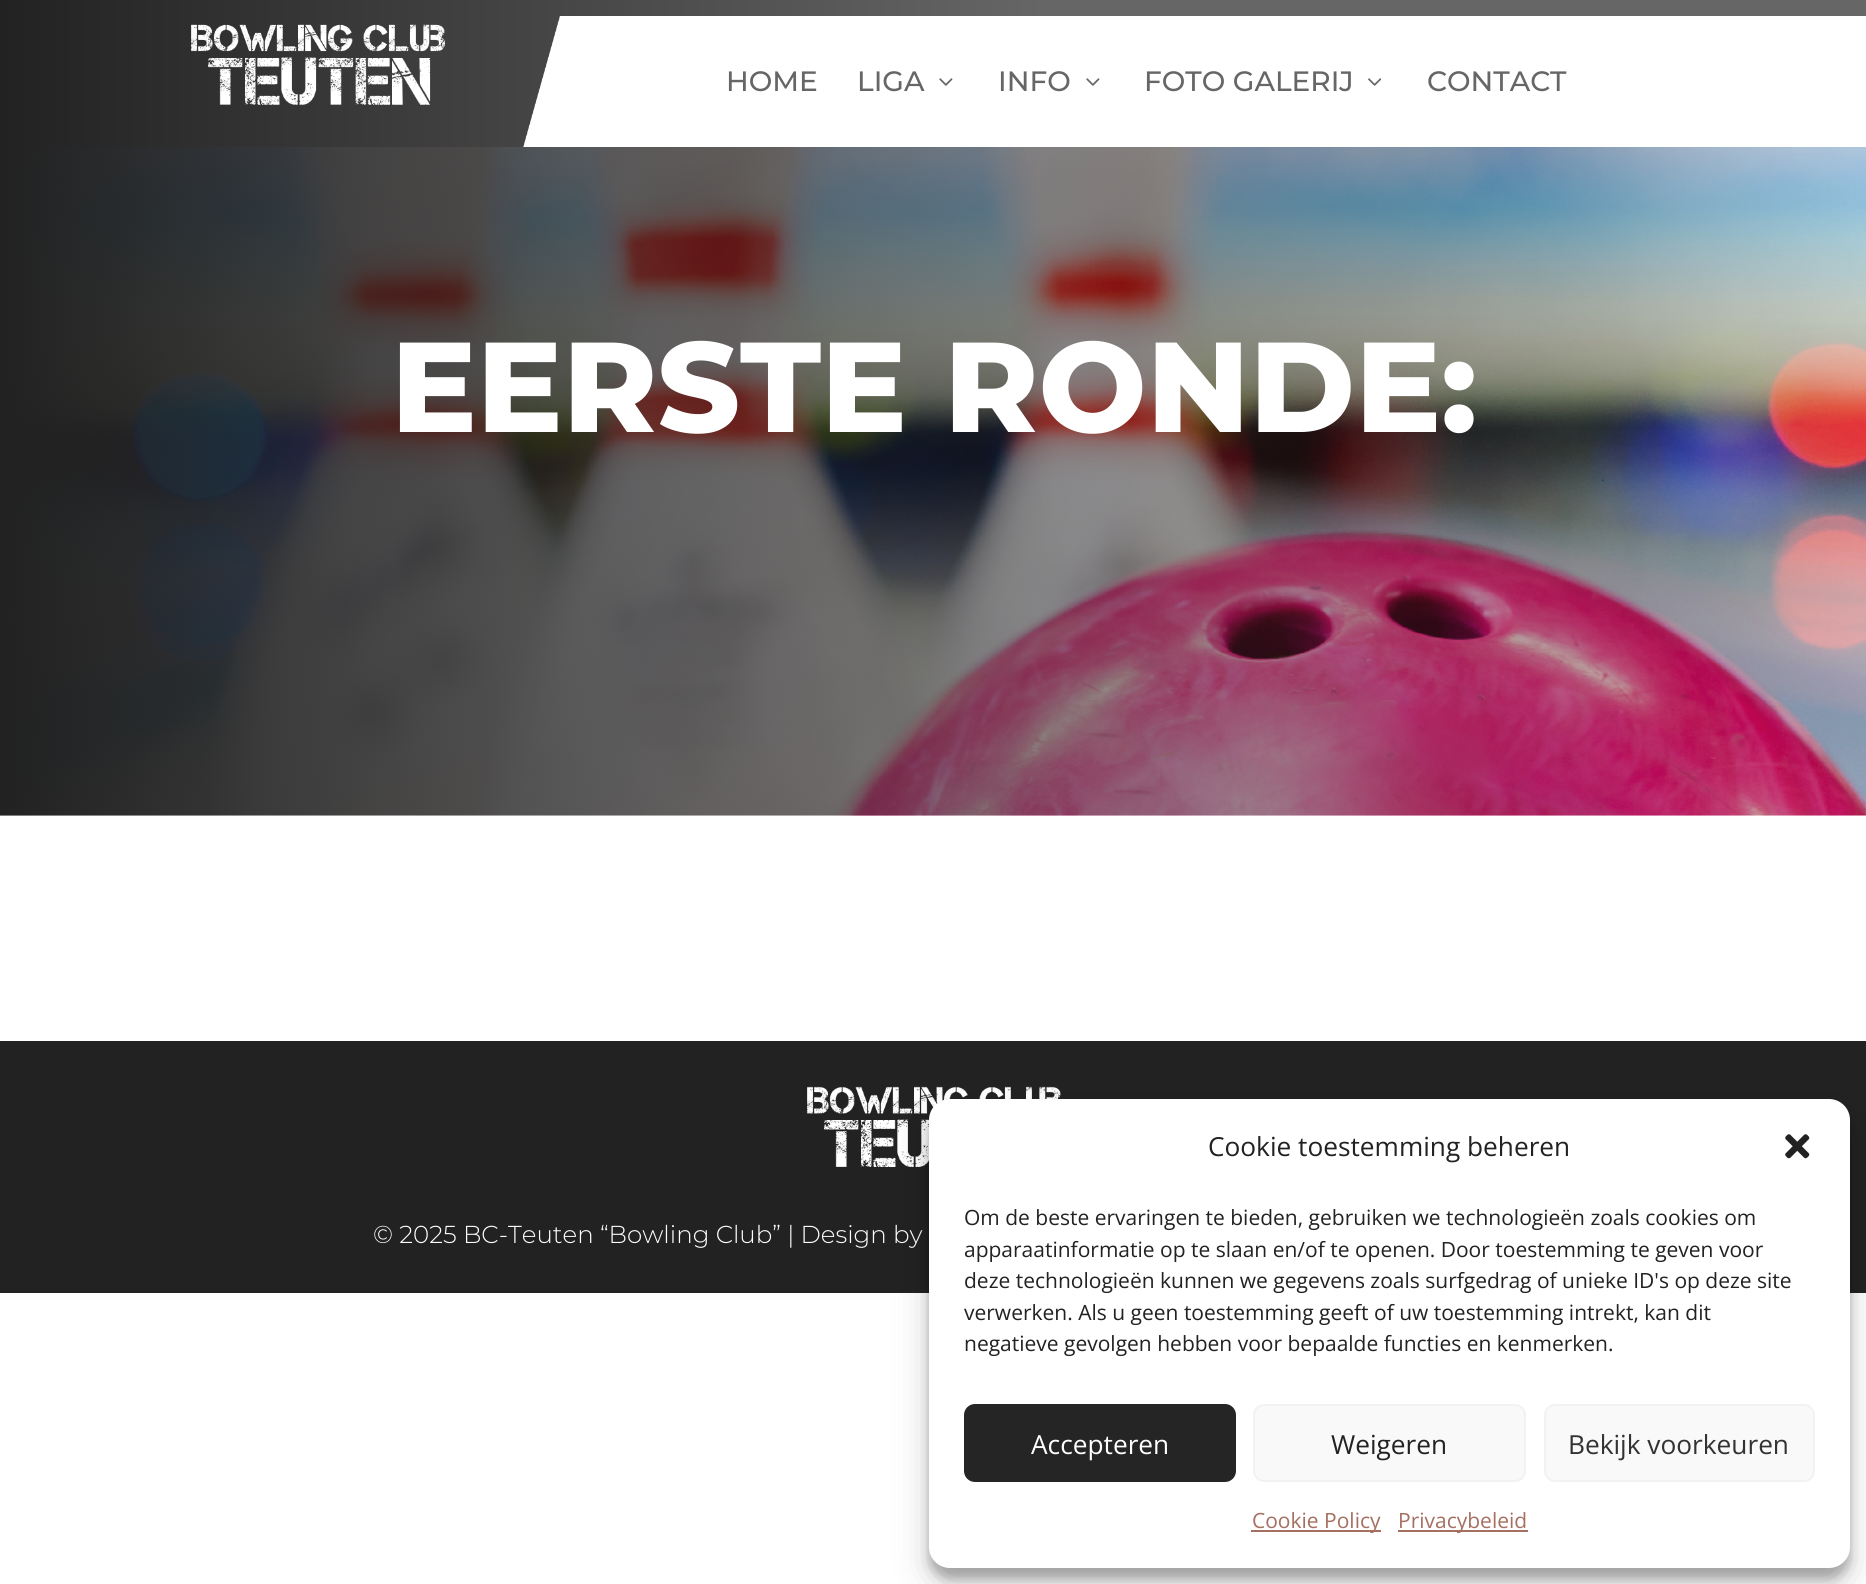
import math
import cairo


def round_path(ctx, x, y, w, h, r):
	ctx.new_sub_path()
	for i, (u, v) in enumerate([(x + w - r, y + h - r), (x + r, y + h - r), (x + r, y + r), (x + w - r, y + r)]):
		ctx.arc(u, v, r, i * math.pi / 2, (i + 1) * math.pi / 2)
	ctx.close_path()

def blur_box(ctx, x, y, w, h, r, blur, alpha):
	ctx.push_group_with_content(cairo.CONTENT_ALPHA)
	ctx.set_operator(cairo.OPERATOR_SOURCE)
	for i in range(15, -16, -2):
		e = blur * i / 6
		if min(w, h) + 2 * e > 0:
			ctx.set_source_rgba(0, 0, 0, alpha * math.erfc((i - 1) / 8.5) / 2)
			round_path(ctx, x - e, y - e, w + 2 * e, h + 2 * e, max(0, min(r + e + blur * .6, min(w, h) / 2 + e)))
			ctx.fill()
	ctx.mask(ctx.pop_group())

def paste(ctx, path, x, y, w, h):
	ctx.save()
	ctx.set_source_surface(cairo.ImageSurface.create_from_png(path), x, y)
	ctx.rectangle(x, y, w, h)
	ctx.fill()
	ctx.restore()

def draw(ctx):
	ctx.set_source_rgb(1, 1, 1)
	ctx.paint()
	gradient = cairo.LinearGradient(0, 74, 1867, 73)
	gradient.add_color_stop_rgba(0, 0.133, 0.133, 0.133, 1)
	gradient.add_color_stop_rgba(0.56, 0.4, 0.4, 0.4, 1)
	ctx.set_source(gradient)
	ctx.rectangle(0, 0, 1866, 147)
	ctx.fill()
	ctx.set_source_rgb(1, 1, 1)
	ctx.rectangle(560, 16, 1306, 131)
	ctx.fill()
	paste(ctx, 'media/1.png', 523, 15, 37, 132)
	paste(ctx, 'media/2.png', 191, 24, 254, 81)
	ctx.select_font_face('Montserrat Medium')
	ctx.set_font_size(28)
	ctx.set_source_rgb(0.4, 0.4, 0.4)
	ctx.move_to(726, 91)
	ctx.show_text('HOME')
	ctx.move_to(857, 91)
	ctx.show_text('LIGA')
	paste(ctx, 'media/3.png', 939, 78, 14, 8)
	ctx.move_to(998, 91)
	ctx.show_text('INFO')
	paste(ctx, 'media/3.png', 1086, 78, 14, 8)
	ctx.move_to(1144, 91)
	ctx.show_text('FOTO GALERIJ')
	paste(ctx, 'media/4.png', 1368, 78, 14, 8)
	ctx.move_to(1427, 91)
	ctx.show_text('CONTACT')
	paste(ctx, 'media/5.png', 0, 147, 1866, 669)
	ctx.select_font_face('Montserrat ExtraBold')
	ctx.set_font_size(127.75)
	ctx.set_source_rgb(1, 1, 1)
	ctx.move_to(391, 432)
	ctx.show_text('EERSTE RONDE:')
	ctx.set_source_rgb(0.133, 0.133, 0.133)
	ctx.rectangle(0, 1041, 1866, 252)
	ctx.fill()
	paste(ctx, 'media/6.png', 807, 1086, 254, 81)
	ctx.select_font_face('Montserrat Light')
	ctx.set_font_size(24.5)
	ctx.set_source_rgb(1, 1, 1)
	ctx.move_to(373, 1243)
	ctx.show_text('© 2025 BC-Teuten “Bowling Club” | Design by')
	ctx.set_source_rgb(0, 0, 0)
	blur_box(ctx, 929, 1110, 921, 469, 21, 5, 0.23)
	blur_box(ctx, 929, 1117, 921, 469, 21, 17.5, 0.19)
	ctx.set_source_rgb(1, 1, 1)
	round_path(ctx, 929, 1099, 921, 469, 21)
	ctx.fill()
	ctx.select_font_face('Open Sans')
	ctx.set_font_size(26.25)
	ctx.set_source_rgb(0.133, 0.133, 0.133)
	ctx.move_to(1208, 1156)
	ctx.show_text('Cookie toestemming beheren')
	paste(ctx, 'media/7.png', 1785, 1134, 25, 25)
	ctx.set_font_size(21)
	for x, y, s in [
		(964, 1225, 'Om de beste ervaringen te bieden, gebruiken we technologieën zoals cookies om'),
		(964, 1257, 'apparaatinformatie op te slaan en/of te openen. Door toestemming te geven voor'),
		(964, 1288, 'deze technologieën kunnen we gegevens zoals surfgedrag of unieke ID\'s op deze site'),
		(964, 1320, 'verwerken. Als u geen toestemming geeft of uw toestemming intrekt, kan dit'),
		(964, 1351, 'negatieve gevolgen hebben voor bepaalde functies en kenmerken.'),
	]:
		ctx.move_to(x, y)
		ctx.show_text(s)
	ctx.set_source_rgb(0.145, 0.145, 0.145)
	round_path(ctx, 965, 1405, 270, 76, 10)
	ctx.fill_preserve()
	ctx.stroke()
	ctx.set_font_size(26.25)
	ctx.set_source_rgb(1, 1, 1)
	ctx.move_to(1031, 1454)
	ctx.show_text('Accepteren')
	ctx.set_source_rgb(0.976, 0.976, 0.976)
	round_path(ctx, 1254, 1405, 271, 76, 10)
	ctx.fill_preserve()
	ctx.set_source_rgb(0.949, 0.949, 0.949)
	ctx.stroke()
	ctx.set_source_rgb(0.133, 0.133, 0.133)
	ctx.move_to(1331, 1454)
	ctx.show_text('Weigeren')
	ctx.set_source_rgb(0.976, 0.976, 0.976)
	round_path(ctx, 1545, 1405, 269, 76, 10)
	ctx.fill_preserve()
	ctx.set_source_rgb(0.949, 0.949, 0.949)
	ctx.stroke()
	ctx.set_source_rgb(0.2, 0.2, 0.2)
	ctx.move_to(1568, 1454)
	ctx.show_text('Bekijk voorkeuren')
	ctx.set_source_rgb(0.647, 0.439, 0.38)
	ctx.rectangle(1251, 1530, 130, 2)
	ctx.fill()
	ctx.set_font_size(21)
	ctx.move_to(1252, 1528)
	ctx.show_text('Cookie Policy')
	ctx.rectangle(1398, 1530, 130, 2)
	ctx.fill()
	ctx.move_to(1398, 1528)
	ctx.show_text('Privacybeleid')


surface = cairo.ImageSurface(cairo.FORMAT_RGB24, 1866, 1584)
ctx = cairo.Context(surface)
options = cairo.FontOptions()
options.set_hint_metrics(cairo.HINT_METRICS_OFF)
options.set_hint_style(cairo.HINT_STYLE_NONE)
ctx.set_font_options(options)
ctx.set_miter_limit(4)
draw(ctx)
surface.write_to_png('image.png')
